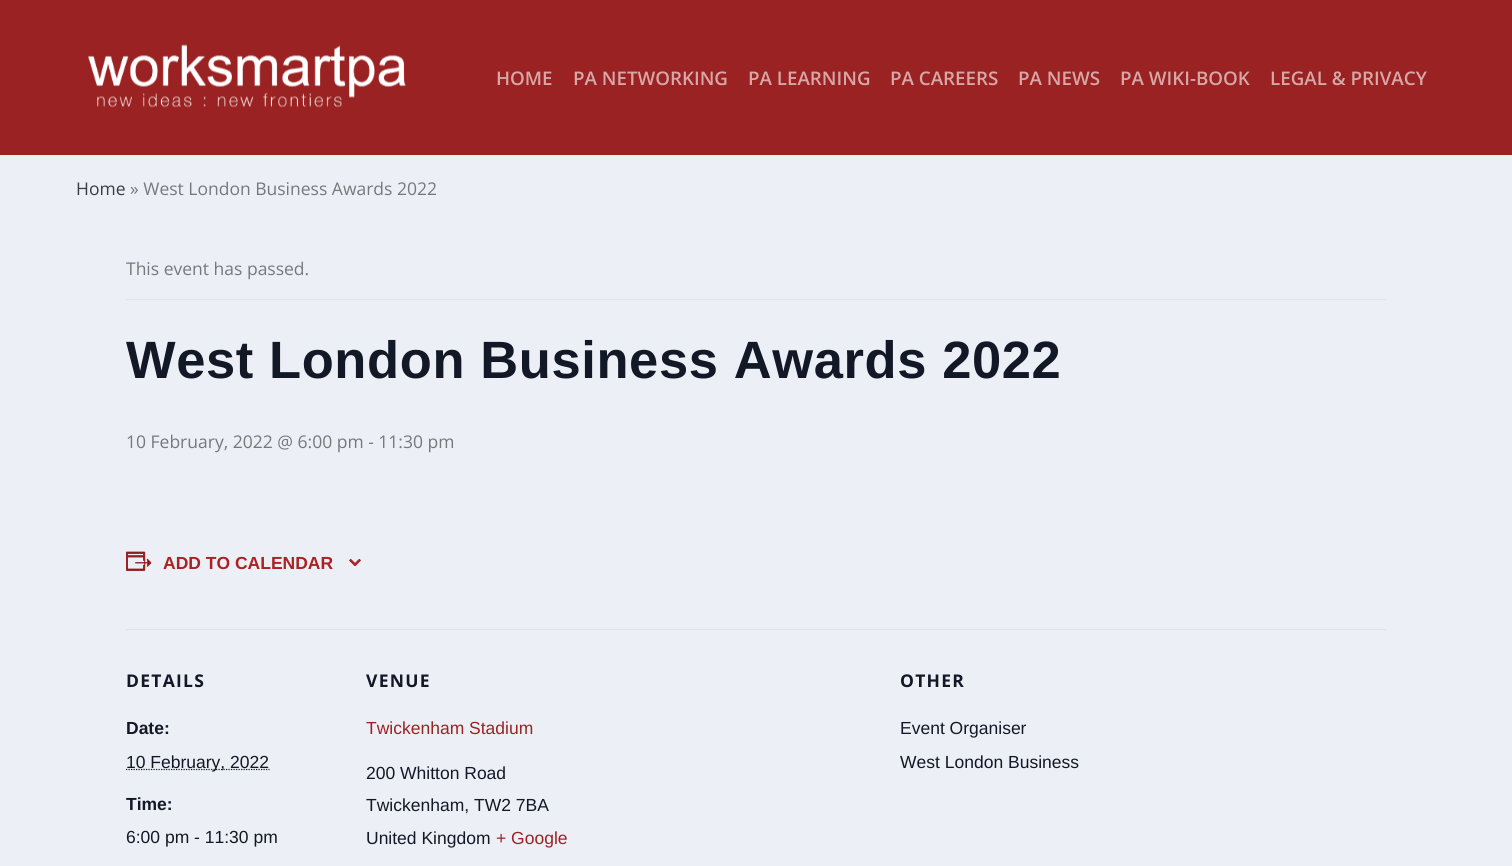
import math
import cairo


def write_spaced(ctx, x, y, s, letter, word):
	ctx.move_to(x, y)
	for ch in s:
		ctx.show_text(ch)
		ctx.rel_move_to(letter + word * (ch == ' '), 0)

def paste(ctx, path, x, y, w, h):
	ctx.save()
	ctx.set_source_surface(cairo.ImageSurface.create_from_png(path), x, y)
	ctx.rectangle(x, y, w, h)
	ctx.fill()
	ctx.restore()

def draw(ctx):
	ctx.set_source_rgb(0.925, 0.941, 0.961)
	ctx.paint()
	ctx.set_source_rgb(0.608, 0.133, 0.133)
	ctx.rectangle(0, 0, 1512, 155)
	ctx.fill()
	paste(ctx, 'media/1.png', 88, 44, 318, 64)
	ctx.select_font_face('Open Sans SemiBold')
	ctx.set_font_size(18.75)
	ctx.set_source_rgb(0.843, 0.655, 0.655)
	for x, y, s in [
		(496, 85, 'HOME'),
		(573, 85, 'PA NETWORKING'),
		(748, 85, 'PA LEARNING'),
		(890, 85, 'PA CAREERS'),
		(1018, 85, 'PA NEWS'),
		(1120, 85, 'PA WIKI-BOOK'),
		(1270, 85, 'LEGAL & PRIVACY'),
	]:
		ctx.move_to(x, y)
		ctx.show_text(s)
	ctx.select_font_face('Open Sans')
	ctx.set_font_size(17.5)
	ctx.set_source_rgb(0.231, 0.235, 0.239)
	ctx.move_to(76, 195)
	ctx.show_text('Home')
	ctx.set_source_rgb(0.463, 0.471, 0.482)
	ctx.move_to(130, 195)
	ctx.show_text('» West London Business Awards 2022')
	ctx.set_source_rgb(0.894, 0.894, 0.894)
	ctx.rectangle(126, 299, 1260, 1)
	ctx.fill()
	ctx.set_source_rgb(0.463, 0.471, 0.482)
	ctx.move_to(126, 275)
	ctx.show_text('This event has passed.')
	ctx.select_font_face('Liberation Sans', cairo.FONT_SLANT_NORMAL, cairo.FONT_WEIGHT_BOLD)
	ctx.set_font_size(52.5)
	ctx.set_source_rgb(0.078, 0.094, 0.153)
	write_spaced(ctx, 126, 378, 'West London Business Awards 2022', 0.6, 0)
	ctx.select_font_face('Open Sans')
	ctx.set_font_size(17.5)
	ctx.set_source_rgb(0.463, 0.471, 0.482)
	ctx.move_to(126, 448)
	ctx.show_text('10 February, 2022 @ 6:00 pm - 11:30 pm')
	paste(ctx, 'media/2.png', 126, 551, 26, 20)
	ctx.select_font_face('Liberation Sans', cairo.FONT_SLANT_NORMAL, cairo.FONT_WEIGHT_BOLD)
	ctx.set_source_rgb(0.667, 0.133, 0.137)
	ctx.move_to(163, 569)
	ctx.show_text('ADD TO CALENDAR')
	paste(ctx, 'media/3.png', 349, 559, 12, 7)
	ctx.set_source_rgb(0.894, 0.894, 0.894)
	ctx.rectangle(126, 629, 1260, 1)
	ctx.fill()
	ctx.select_font_face('Open Sans', cairo.FONT_SLANT_NORMAL, cairo.FONT_WEIGHT_BOLD)
	ctx.set_source_rgb(0.078, 0.094, 0.153)
	write_spaced(ctx, 126, 687, 'DETAILS', 1.25, 0)
	ctx.select_font_face('Liberation Sans', cairo.FONT_SLANT_NORMAL, cairo.FONT_WEIGHT_BOLD)
	ctx.move_to(126, 734)
	ctx.show_text('Date:')
	ctx.new_path()
	ctx.move_to(126, 769.5)
	ctx.line_to(269.5, 769.5)
	ctx.set_line_width(1.2)
	ctx.set_dash([1.25, 1.25])
	ctx.stroke()
	ctx.select_font_face('Liberation Sans')
	ctx.move_to(126, 768)
	ctx.show_text('10 February, 2022')
	ctx.select_font_face('Liberation Sans', cairo.FONT_SLANT_NORMAL, cairo.FONT_WEIGHT_BOLD)
	ctx.move_to(126, 810)
	ctx.show_text('Time:')
	ctx.select_font_face('Liberation Sans')
	ctx.move_to(126, 843)
	ctx.show_text('6:00 pm - 11:30 pm')
	ctx.select_font_face('Open Sans', cairo.FONT_SLANT_NORMAL, cairo.FONT_WEIGHT_BOLD)
	write_spaced(ctx, 366, 687, 'VENUE', 1.25, 0)
	ctx.select_font_face('Liberation Sans')
	ctx.set_source_rgb(0.608, 0.133, 0.137)
	ctx.move_to(366, 734)
	ctx.show_text('Twickenham Stadium')
	ctx.set_source_rgb(0.078, 0.094, 0.153)
	for x, y, s in [
		(366, 779, '200 Whitton Road'),
		(366, 811, 'Twickenham, TW2 7BA'),
		(366, 844, 'United Kingdom'),
	]:
		ctx.move_to(x, y)
		ctx.show_text(s)
	ctx.set_source_rgb(0.608, 0.133, 0.137)
	ctx.move_to(496, 844)
	ctx.show_text('+ Google')
	ctx.select_font_face('Open Sans', cairo.FONT_SLANT_NORMAL, cairo.FONT_WEIGHT_BOLD)
	ctx.set_source_rgb(0.078, 0.094, 0.153)
	write_spaced(ctx, 900, 687, 'OTHER', 1.25, 0)
	ctx.select_font_face('Liberation Sans')
	ctx.move_to(900, 734)
	ctx.show_text('Event Organiser')
	ctx.move_to(900, 768)
	ctx.show_text('West London Business')


surface = cairo.ImageSurface(cairo.FORMAT_RGB24, 1512, 866)
ctx = cairo.Context(surface)
options = cairo.FontOptions()
options.set_hint_metrics(cairo.HINT_METRICS_OFF)
options.set_hint_style(cairo.HINT_STYLE_NONE)
ctx.set_font_options(options)
ctx.set_miter_limit(4)
draw(ctx)
surface.write_to_png('image.png')
